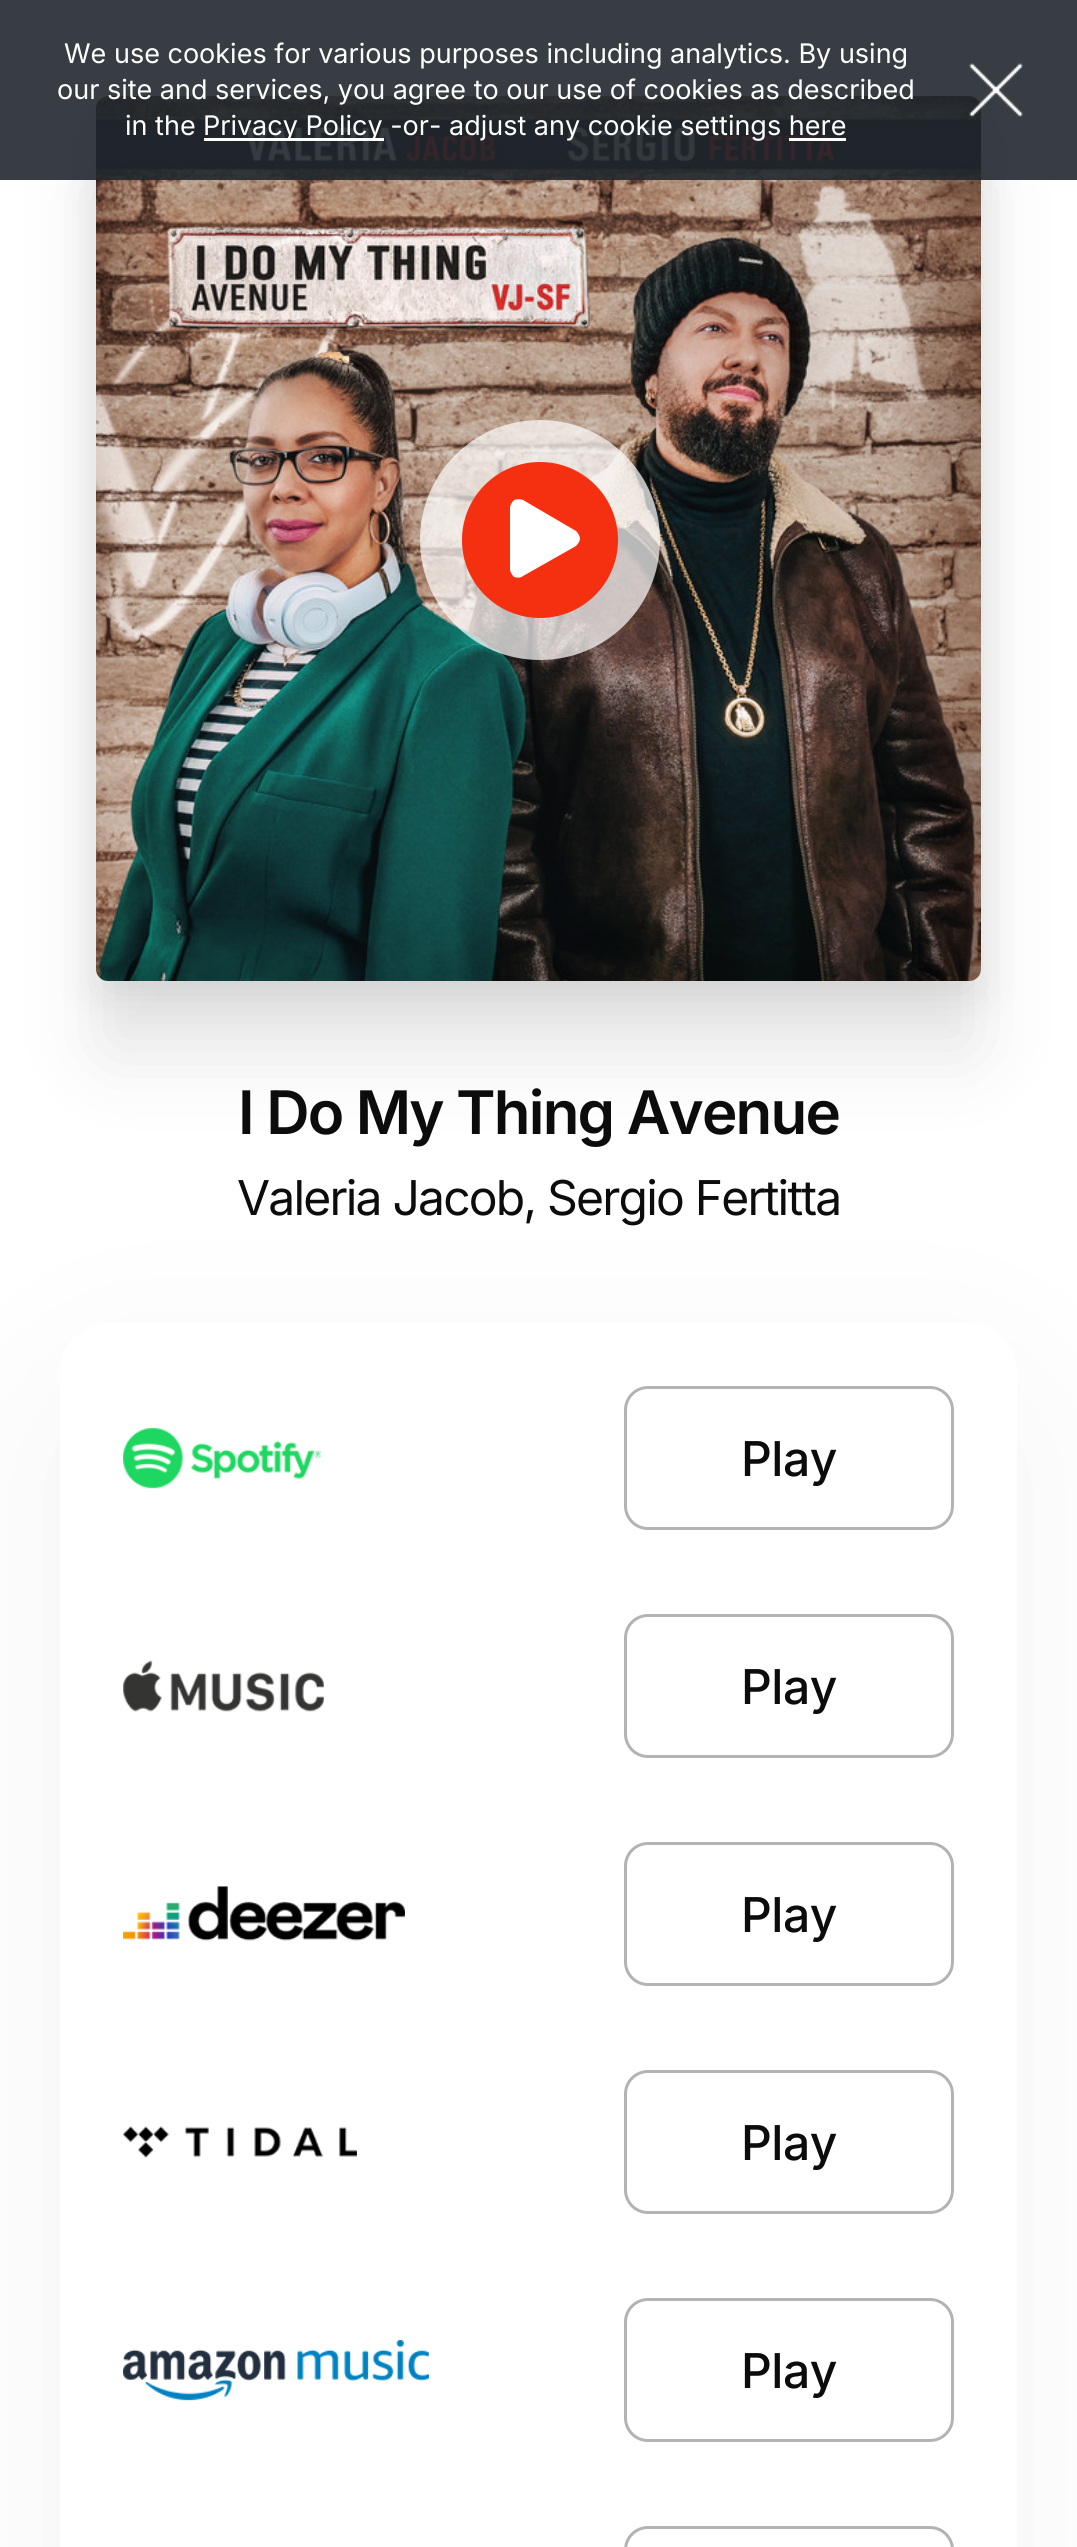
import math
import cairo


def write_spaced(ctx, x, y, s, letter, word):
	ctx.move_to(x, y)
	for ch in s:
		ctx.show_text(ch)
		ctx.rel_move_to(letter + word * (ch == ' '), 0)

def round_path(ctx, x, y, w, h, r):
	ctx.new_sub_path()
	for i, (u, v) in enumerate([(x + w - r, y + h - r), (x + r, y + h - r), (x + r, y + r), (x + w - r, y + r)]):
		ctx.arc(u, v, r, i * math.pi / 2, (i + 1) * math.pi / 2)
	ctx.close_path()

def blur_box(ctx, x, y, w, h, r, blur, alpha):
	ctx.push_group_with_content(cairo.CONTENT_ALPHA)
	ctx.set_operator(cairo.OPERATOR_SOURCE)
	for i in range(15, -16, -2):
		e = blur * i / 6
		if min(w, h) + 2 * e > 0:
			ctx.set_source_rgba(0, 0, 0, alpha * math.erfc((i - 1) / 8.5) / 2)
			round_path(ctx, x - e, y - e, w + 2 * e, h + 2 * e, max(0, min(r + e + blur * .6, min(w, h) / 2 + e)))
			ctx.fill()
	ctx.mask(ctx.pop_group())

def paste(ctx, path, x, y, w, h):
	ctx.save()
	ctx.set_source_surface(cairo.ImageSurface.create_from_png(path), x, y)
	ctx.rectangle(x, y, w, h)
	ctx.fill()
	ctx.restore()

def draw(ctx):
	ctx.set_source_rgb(1, 1, 1)
	ctx.paint()
	ctx.set_source_rgb(0, 0, 0)
	blur_box(ctx, 96, 114, 885, 885, 12, 21, 0.1)
	blur_box(ctx, 96, 174, 885, 885, 12, 39, 0.09)
	paste(ctx, 'media/2.png', 96, 96, 885, 885)
	ctx.set_source_rgba(0.133, 0.157, 0.18, 0.9)
	ctx.rectangle(0, 0, 1077, 180)
	ctx.fill()
	ctx.select_font_face('Inter')
	ctx.set_font_size(27)
	ctx.set_source_rgb(1, 1, 1)
	for x, y, s in [
		(64, 63, 'We use cookies for various purposes including analytics. By using'),
		(57, 99, 'our site and services, you agree to our use of cookies as described'),
		(125, 135, 'in the'),
	]:
		ctx.move_to(x, y)
		ctx.show_text(s)
	ctx.rectangle(204, 138, 180, 3)
	ctx.fill()
	ctx.move_to(203, 135)
	ctx.show_text('Privacy Policy -or- adjust any cookie settings here')
	ctx.rectangle(789, 138, 57, 3)
	ctx.fill()
	paste(ctx, 'media/1.png', 969, 63, 54, 54)
	ctx.set_source_rgba(1, 1, 1, 0.7)
	ctx.arc(540, 540, 120, 0, 2 * math.pi)
	ctx.fill()
	ctx.set_source_rgb(0.957, 0.188, 0.063)
	ctx.arc(540, 540, 78, 0, 2 * math.pi)
	ctx.fill()
	ctx.set_source_rgb(1, 1, 1)
	ctx.new_path()
	ctx.move_to(576, 531)
	ctx.curve_to(578, 533, 580, 536, 580, 539)
	ctx.curve_to(580, 541, 578, 544, 576, 546)
	ctx.line_to(523, 576)
	ctx.curve_to(521, 578, 517, 578, 514, 577)
	ctx.curve_to(512, 575, 510, 572, 510, 569)
	ctx.line_to(510, 508)
	ctx.curve_to(510, 505, 512, 502, 514, 500)
	ctx.curve_to(517, 499, 521, 499, 523, 500)
	ctx.close_path()
	ctx.fill()
	ctx.select_font_face('Inter SemiBold')
	ctx.set_font_size(60)
	ctx.set_source_rgb(0.051, 0.047, 0.047)
	write_spaced(ctx, 238, 1134, 'I Do My Thing Avenue', -1.8, 0)
	ctx.select_font_face('Inter')
	ctx.set_font_size(48)
	write_spaced(ctx, 237, 1215, 'Valeria Jacob, Sergio Fertitta', -1.8, 0)
	ctx.set_source_rgb(0, 0, 0)
	blur_box(ctx, 60, 1395, 957, 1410, 48, 102, 0.05)
	ctx.set_source_rgb(1, 1, 1)
	round_path(ctx, 60, 1323, 957, 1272, 48)
	ctx.fill()
	paste(ctx, 'media/3.png', 123, 1427, 198, 62)
	round_path(ctx, 625.5, 1387.5, 327, 141, 22.5)
	ctx.set_source_rgb(0.702, 0.702, 0.702)
	ctx.set_line_width(3)
	ctx.stroke()
	ctx.select_font_face('Inter Medium')
	ctx.set_source_rgb(0.051, 0.047, 0.047)
	write_spaced(ctx, 741, 1476, 'Play', -0.5, 0)
	paste(ctx, 'media/4.png', 123, 1660, 201, 52)
	round_path(ctx, 625.5, 1615.5, 327, 141, 22.5)
	ctx.set_source_rgb(0.702, 0.702, 0.702)
	ctx.stroke()
	ctx.set_source_rgb(0.051, 0.047, 0.047)
	write_spaced(ctx, 741, 1704, 'Play', -0.5, 0)
	paste(ctx, 'media/5.png', 123, 1886, 282, 55)
	round_path(ctx, 625.5, 1843.5, 327, 141, 22.5)
	ctx.set_source_rgb(0.702, 0.702, 0.702)
	ctx.stroke()
	ctx.set_source_rgb(0.051, 0.047, 0.047)
	write_spaced(ctx, 741, 1932, 'Play', -0.5, 0)
	paste(ctx, 'media/6.png', 123, 2126, 234, 32)
	round_path(ctx, 625.5, 2071.5, 327, 141, 22.5)
	ctx.set_source_rgb(0.702, 0.702, 0.702)
	ctx.stroke()
	ctx.set_source_rgb(0.051, 0.047, 0.047)
	write_spaced(ctx, 741, 2160, 'Play', -0.5, 0)
	paste(ctx, 'media/7.png', 123, 2339, 306, 62)
	round_path(ctx, 625.5, 2299.5, 327, 141, 22.5)
	ctx.set_source_rgb(0.702, 0.702, 0.702)
	ctx.stroke()
	ctx.set_source_rgb(0.051, 0.047, 0.047)
	write_spaced(ctx, 741, 2388, 'Play', -0.5, 0)
	round_path(ctx, 625.5, 2527.5, 327, 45, 22.5)
	ctx.set_source_rgb(0.702, 0.702, 0.702)
	ctx.stroke()


surface = cairo.ImageSurface(cairo.FORMAT_RGB24, 1077, 2547)
ctx = cairo.Context(surface)
options = cairo.FontOptions()
options.set_hint_metrics(cairo.HINT_METRICS_OFF)
options.set_hint_style(cairo.HINT_STYLE_NONE)
ctx.set_font_options(options)
ctx.set_miter_limit(4)
draw(ctx)
surface.write_to_png('image.png')
